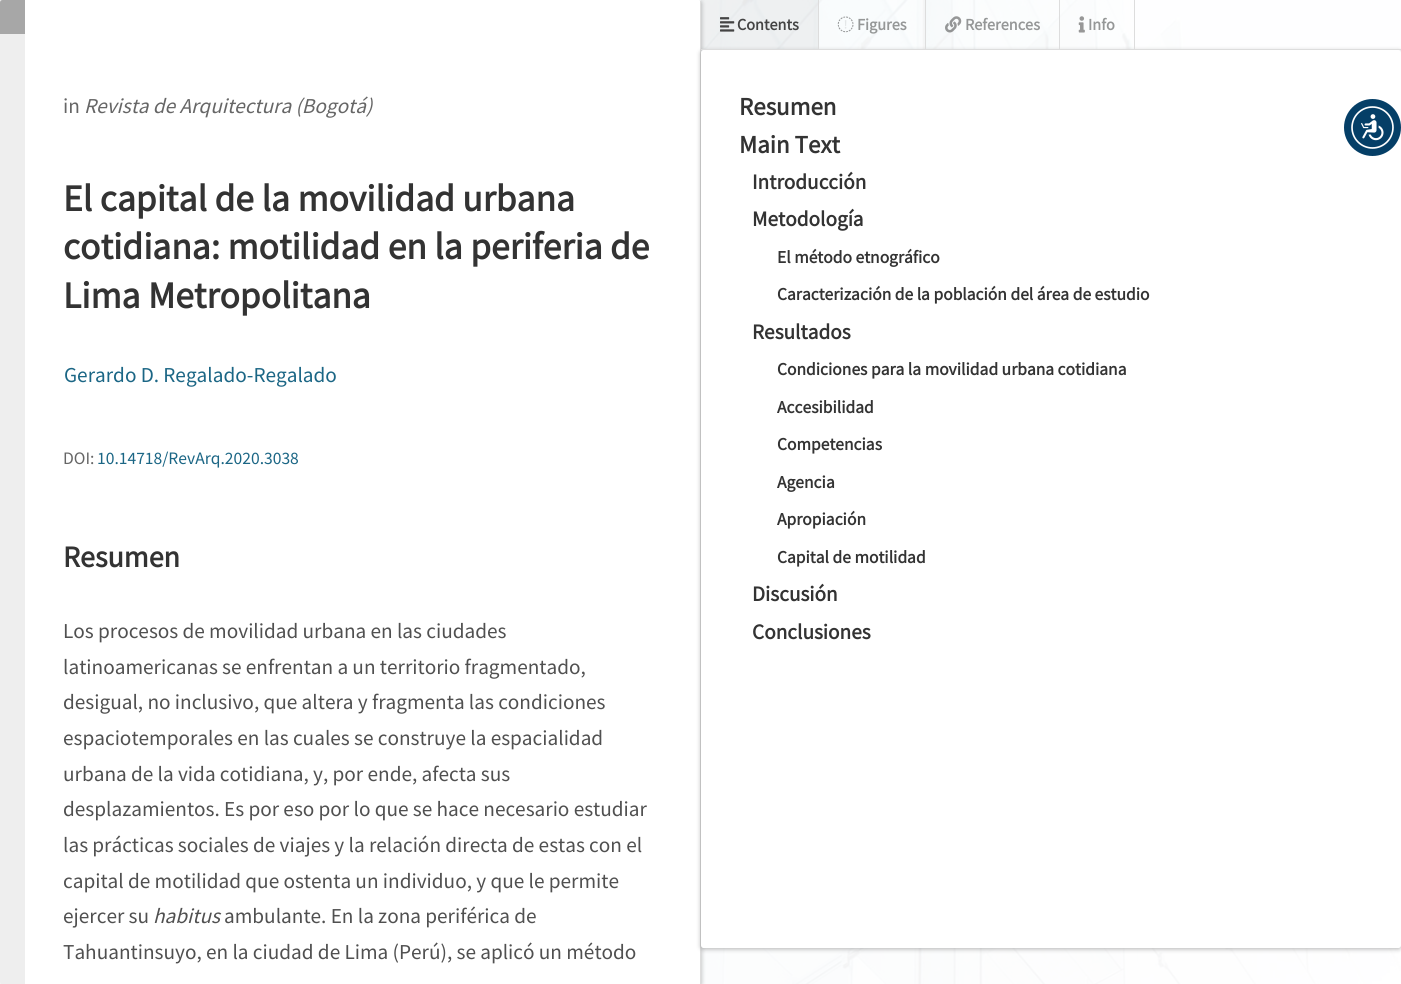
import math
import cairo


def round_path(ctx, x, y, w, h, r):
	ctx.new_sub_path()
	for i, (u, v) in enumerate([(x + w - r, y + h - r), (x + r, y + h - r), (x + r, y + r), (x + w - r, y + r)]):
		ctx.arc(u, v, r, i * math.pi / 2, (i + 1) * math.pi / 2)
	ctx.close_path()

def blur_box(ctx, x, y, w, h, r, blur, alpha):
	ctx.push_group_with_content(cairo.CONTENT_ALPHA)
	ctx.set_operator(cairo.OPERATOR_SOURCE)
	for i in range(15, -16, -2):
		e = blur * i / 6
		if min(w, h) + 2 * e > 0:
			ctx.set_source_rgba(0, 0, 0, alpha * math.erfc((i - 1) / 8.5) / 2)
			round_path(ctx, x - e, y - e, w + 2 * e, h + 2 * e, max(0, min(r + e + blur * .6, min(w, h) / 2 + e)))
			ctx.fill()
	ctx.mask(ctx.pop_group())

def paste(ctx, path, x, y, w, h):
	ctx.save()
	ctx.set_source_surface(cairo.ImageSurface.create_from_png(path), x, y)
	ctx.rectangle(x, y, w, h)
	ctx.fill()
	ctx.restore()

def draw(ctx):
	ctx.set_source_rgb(1, 1, 1)
	ctx.paint()
	paste(ctx, 'media/1.png', 0, 0, 1401, 984)
	ctx.set_source_rgb(0, 0, 0)
	blur_box(ctx, 0, 1, 701, 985, 2.5, 2.5, 0.3)
	ctx.set_source_rgb(1, 1, 1)
	round_path(ctx, 0, 0, 701, 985, 2.5)
	ctx.fill()
	ctx.set_source_rgb(0.867, 0.867, 0.867)
	ctx.rectangle(700, 1, 1, 983)
	ctx.fill()
	ctx.set_source_rgb(1, 1, 1)
	ctx.new_path()
	ctx.move_to(2, 0)
	ctx.curve_to(1, 0, 0, 1, 0, 2)
	ctx.line_to(0, 982)
	ctx.curve_to(0, 984, 1, 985, 2, 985)
	ctx.line_to(699, 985)
	ctx.curve_to(699, 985, 700, 984, 700, 982)
	ctx.line_to(700, 2)
	ctx.curve_to(700, 1, 699, 0, 699, 0)
	ctx.close_path()
	ctx.fill()
	ctx.set_source_rgb(0.933, 0.933, 0.933)
	ctx.new_path()
	ctx.move_to(2, 0)
	ctx.curve_to(1, 0, 0, 1, 0, 2)
	ctx.line_to(0, 982)
	ctx.curve_to(0, 984, 1, 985, 2, 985)
	ctx.line_to(25, 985)
	ctx.line_to(25, 0)
	ctx.close_path()
	ctx.fill()
	ctx.set_source_rgb(0.655, 0.655, 0.655)
	ctx.new_path()
	ctx.move_to(2.5, 0)
	ctx.curve_to(1, 0, 0, 1, 0, 2.5)
	ctx.line_to(0, 34)
	ctx.line_to(25, 34)
	ctx.line_to(25, 0)
	ctx.close_path()
	ctx.fill()
	ctx.select_font_face('Source Sans Pro')
	ctx.set_font_size(21.25)
	ctx.set_source_rgb(0.4, 0.4, 0.4)
	ctx.move_to(63, 113)
	ctx.show_text('in')
	ctx.select_font_face('Source Sans Pro', cairo.FONT_SLANT_ITALIC)
	ctx.move_to(84, 113)
	ctx.show_text('Revista de Arquitectura (Bogotá)')
	ctx.select_font_face('Source Sans Pro', cairo.FONT_SLANT_NORMAL, cairo.FONT_WEIGHT_BOLD)
	ctx.set_font_size(37.5)
	ctx.set_source_rgb(0.2, 0.2, 0.2)
	for x, y, s in [
		(63, 211, 'El capital de la movilidad urbana'),
		(63, 259, 'cotidiana: motilidad en la periferia de'),
		(63, 308, 'Lima Metropolitana'),
	]:
		ctx.move_to(x, y)
		ctx.show_text(s)
	ctx.select_font_face('Source Sans Pro')
	ctx.set_font_size(21.25)
	ctx.set_source_rgb(0.106, 0.4, 0.522)
	ctx.move_to(64, 382)
	ctx.show_text('Gerardo D. Regalado-Regalado')
	ctx.set_font_size(17.5)
	ctx.set_source_rgb(0.4, 0.4, 0.4)
	ctx.move_to(63, 464)
	ctx.show_text('DOI:')
	ctx.set_source_rgb(0.106, 0.4, 0.522)
	ctx.move_to(97, 464)
	ctx.show_text('10.14718/RevArq.2020.3038')
	ctx.select_font_face('Source Sans Pro', cairo.FONT_SLANT_NORMAL, cairo.FONT_WEIGHT_BOLD)
	ctx.set_font_size(30)
	ctx.set_source_rgb(0.2, 0.2, 0.2)
	ctx.move_to(63, 567)
	ctx.show_text('Resumen')
	ctx.select_font_face('Source Sans Pro')
	ctx.set_font_size(21.25)
	ctx.set_source_rgb(0.314, 0.314, 0.314)
	for x, y, s in [
		(63, 638, 'Los procesos de movilidad urbana en las ciudades'),
		(63, 674, 'latinoamericanas se enfrentan a un territorio fragmentado,'),
		(63, 709, 'desigual, no inclusivo, que altera y fragmenta las condiciones'),
		(63, 745, 'espaciotemporales en las cuales se construye la espacialidad'),
		(63, 781, 'urbana de la vida cotidiana, y, por ende, afecta sus'),
		(63, 816, 'desplazamientos. Es por eso por lo que se hace necesario estudiar'),
		(63, 852, 'las prácticas sociales de viajes y la relación directa de estas con el'),
		(63, 888, 'capital de motilidad que ostenta un individuo, y que le permite'),
		(63, 923, 'ejercer su'),
	]:
		ctx.move_to(x, y)
		ctx.show_text(s)
	ctx.select_font_face('Source Sans Pro', cairo.FONT_SLANT_ITALIC)
	ctx.move_to(153, 923)
	ctx.show_text('habitus')
	ctx.select_font_face('Source Sans Pro')
	ctx.move_to(224, 923)
	ctx.show_text('ambulante. En la zona periférica de')
	ctx.move_to(63, 959)
	ctx.show_text('Tahuantinsuyo, en la ciudad de Lima (Perú), se aplicó un método')
	ctx.set_source_rgb(0, 0, 0)
	blur_box(ctx, 701, 51, 700, 898, 2.5, 2.5, 0.3)
	ctx.set_source_rgb(0.867, 0.867, 0.867)
	ctx.rectangle(701, 49, 700, 1)
	ctx.fill()
	ctx.set_source_rgba(0, 0, 0, 0.05)
	ctx.rectangle(701, 0, 117, 49)
	ctx.fill()
	ctx.save()
	ctx.rectangle(701, 0, 700, 49)
	ctx.clip()
	ctx.set_source_rgb(0.867, 0.867, 0.867)
	ctx.new_path()
	ctx.move_to(819, 0)
	ctx.line_to(819, 54)
	ctx.line_to(818, 50)
	ctx.line_to(818, 0)
	ctx.close_path()
	ctx.fill()
	ctx.restore()
	paste(ctx, 'media/2.png', 720, 17, 15, 15)
	ctx.select_font_face('Source Sans Pro', cairo.FONT_SLANT_NORMAL, cairo.FONT_WEIGHT_BOLD)
	ctx.set_font_size(16.25)
	ctx.set_source_rgb(0.267, 0.267, 0.267)
	ctx.move_to(737, 30)
	ctx.show_text('Contents')
	ctx.set_source_rgb(0.867, 0.867, 0.867)
	ctx.rectangle(925, 0, 1, 49)
	ctx.fill()
	paste(ctx, 'media/3.png', 837, 16, 17, 17)
	ctx.set_source_rgb(0.584, 0.592, 0.592)
	ctx.move_to(857, 30)
	ctx.show_text('Figures')
	ctx.set_source_rgb(0.867, 0.867, 0.867)
	ctx.rectangle(1059, 0, 1, 49)
	ctx.fill()
	paste(ctx, 'media/4.png', 945, 16, 17, 17)
	ctx.set_source_rgb(0.584, 0.592, 0.592)
	ctx.move_to(965, 30)
	ctx.show_text('References')
	ctx.set_source_rgb(0.867, 0.867, 0.867)
	ctx.rectangle(1134, 0, 1, 49)
	ctx.fill()
	paste(ctx, 'media/5.png', 1078, 16, 7, 17)
	ctx.set_source_rgb(0.584, 0.592, 0.592)
	ctx.move_to(1088, 30)
	ctx.show_text('Info')
	ctx.set_source_rgb(1, 1, 1)
	round_path(ctx, 701, 50, 700, 898, 2.5)
	ctx.fill()
	ctx.set_font_size(25)
	ctx.set_source_rgb(0.2, 0.2, 0.2)
	ctx.move_to(739, 115)
	ctx.show_text('Resumen')
	ctx.move_to(739, 153)
	ctx.show_text('Main Text')
	ctx.set_font_size(21.25)
	ctx.move_to(752, 189)
	ctx.show_text('Introducción')
	ctx.move_to(752, 226)
	ctx.show_text('Metodología')
	ctx.set_font_size(17.5)
	ctx.move_to(777, 263)
	ctx.show_text('El método etnográfico')
	ctx.move_to(777, 300)
	ctx.show_text('Caracterización de la población del área de estudio')
	ctx.set_font_size(21.25)
	ctx.move_to(752, 339)
	ctx.show_text('Resultados')
	ctx.set_font_size(17.5)
	for x, y, s in [
		(777, 375, 'Condiciones para la movilidad urbana cotidiana'),
		(777, 413, 'Accesibilidad'),
		(777, 450, 'Competencias'),
		(777, 488, 'Agencia'),
		(777, 525, 'Apropiación'),
		(777, 563, 'Capital de motilidad'),
	]:
		ctx.move_to(x, y)
		ctx.show_text(s)
	ctx.set_font_size(21.25)
	ctx.move_to(752, 601)
	ctx.show_text('Discusión')
	ctx.move_to(752, 639)
	ctx.show_text('Conclusiones')
	ctx.set_source_rgb(0.02, 0.247, 0.404)
	ctx.new_path()
	ctx.arc(1372.5, 127.5, 28.5, 0, 2 * math.pi)
	ctx.fill()
	paste(ctx, 'media/6.png', 1351, 106, 43, 43)


surface = cairo.ImageSurface(cairo.FORMAT_RGB24, 1401, 984)
ctx = cairo.Context(surface)
options = cairo.FontOptions()
options.set_hint_metrics(cairo.HINT_METRICS_OFF)
options.set_hint_style(cairo.HINT_STYLE_NONE)
ctx.set_font_options(options)
ctx.set_miter_limit(4)
draw(ctx)
surface.write_to_png('image.png')
